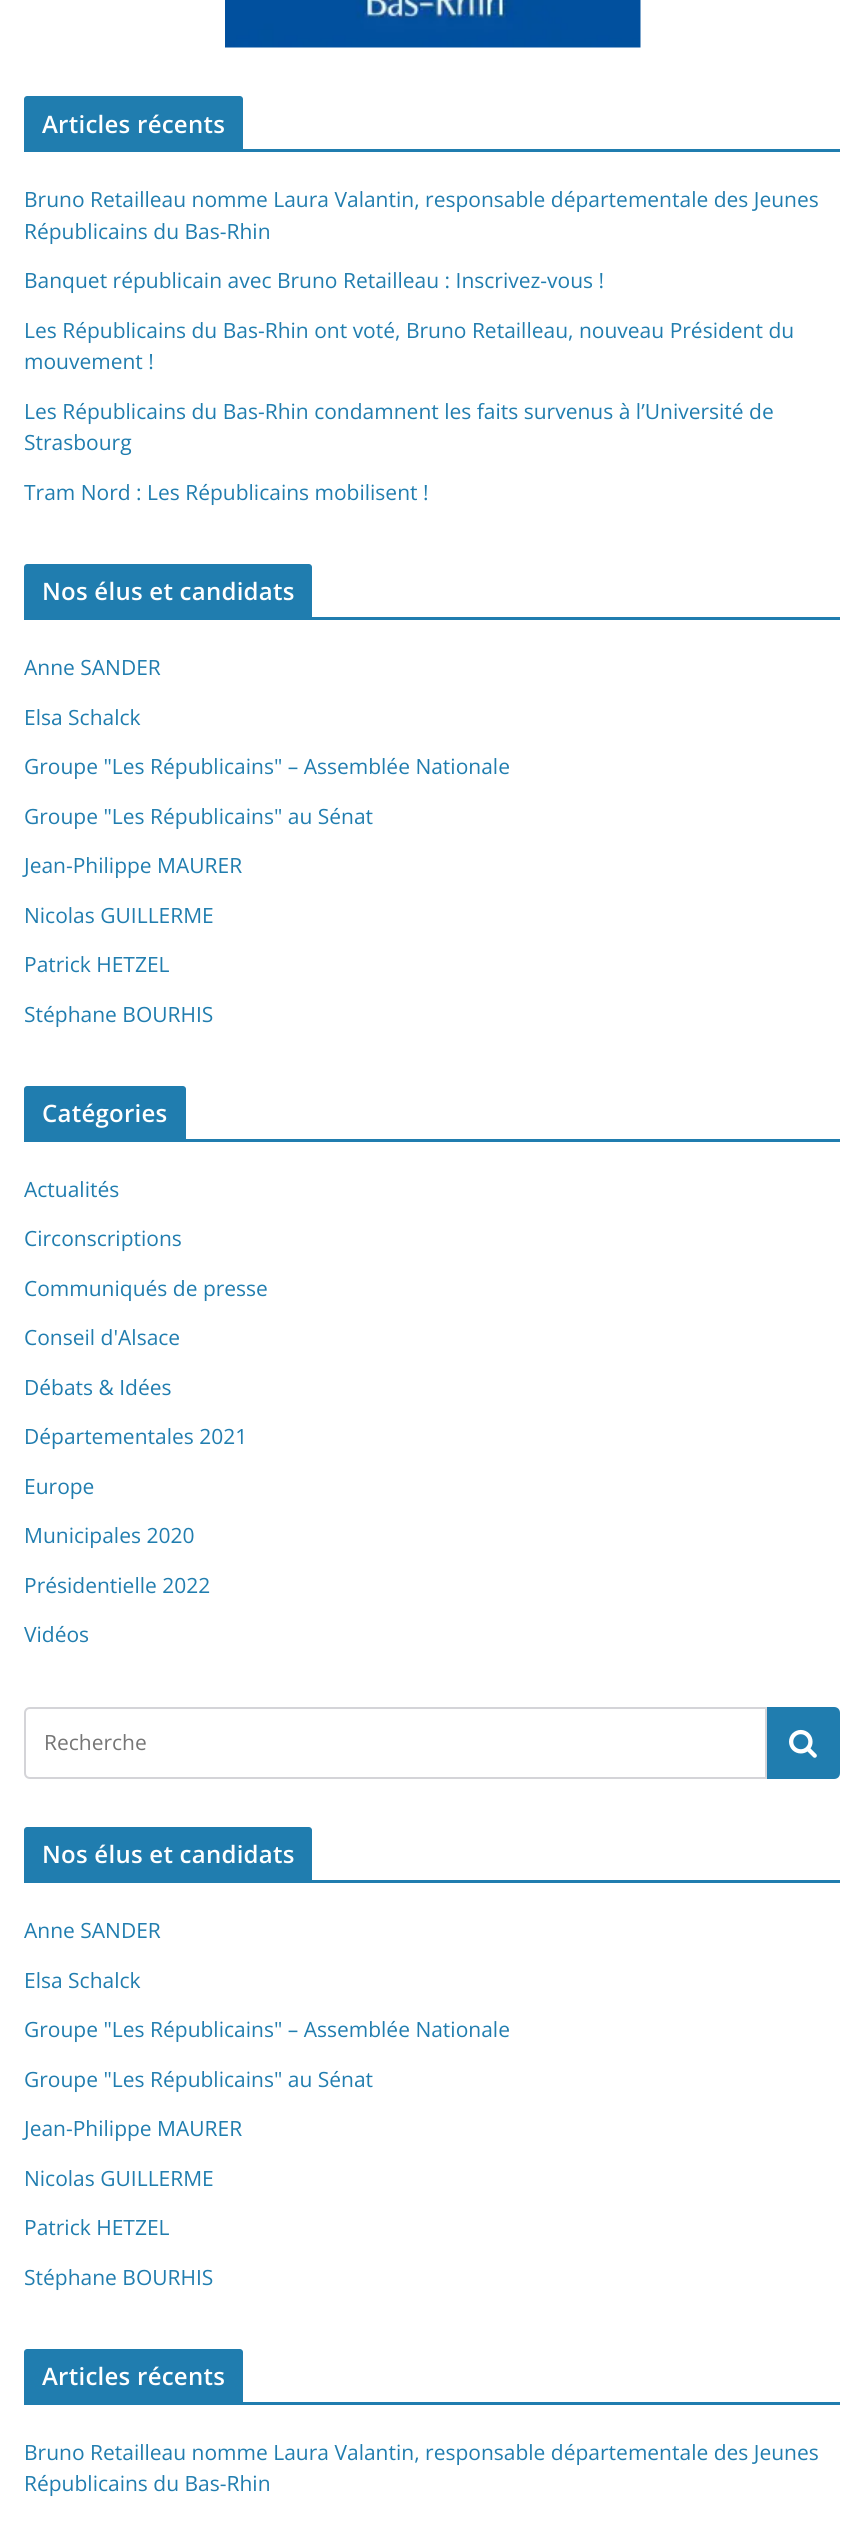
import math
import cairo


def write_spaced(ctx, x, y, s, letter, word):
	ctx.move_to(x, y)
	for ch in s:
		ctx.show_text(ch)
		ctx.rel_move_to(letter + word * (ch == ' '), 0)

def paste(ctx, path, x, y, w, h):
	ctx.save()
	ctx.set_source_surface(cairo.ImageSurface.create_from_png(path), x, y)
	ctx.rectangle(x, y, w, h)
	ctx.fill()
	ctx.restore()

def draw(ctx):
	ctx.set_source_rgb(1, 1, 1)
	ctx.paint()
	paste(ctx, 'media/1.png', 225, 0, 416, 48)
	ctx.set_source_rgb(0.125, 0.49, 0.686)
	ctx.rectangle(24, 149, 816, 3)
	ctx.fill()
	ctx.new_path()
	ctx.move_to(27, 96)
	ctx.line_to(240, 96)
	ctx.curve_to(241.5, 96, 243, 97.5, 243, 99)
	ctx.line_to(243, 149)
	ctx.line_to(24, 149)
	ctx.line_to(24, 99)
	ctx.curve_to(24, 97.5, 25.5, 96, 27, 96)
	ctx.close_path()
	ctx.fill()
	ctx.select_font_face('Open Sans SemiBold')
	ctx.set_font_size(24)
	ctx.set_source_rgb(1, 1, 1)
	write_spaced(ctx, 42, 133, 'Articles récents', 0.25, 0)
	ctx.select_font_face('Open Sans')
	ctx.set_font_size(21)
	ctx.set_source_rgb(0.125, 0.49, 0.686)
	for x, y, s in [
		(24, 207, 'Bruno Retailleau nomme Laura Valantin, responsable départementale des Jeunes'),
		(24, 239, 'Républicains du Bas-Rhin'),
		(24, 288, 'Banquet républicain avec Bruno Retailleau : Inscrivez-vous !'),
		(24, 338, 'Les Républicains du Bas-Rhin ont voté, Bruno Retailleau, nouveau Président du'),
		(24, 369, 'mouvement !'),
		(24, 419, 'Les Républicains du Bas-Rhin condamnent les faits survenus à l’Université de'),
		(24, 450, 'Strasbourg'),
		(24, 500, 'Tram Nord : Les Républicains mobilisent !'),
	]:
		ctx.move_to(x, y)
		ctx.show_text(s)
	ctx.rectangle(24, 617, 816, 3)
	ctx.fill()
	ctx.new_path()
	ctx.move_to(27, 564)
	ctx.line_to(309, 564)
	ctx.curve_to(310.5, 564, 312, 565.5, 312, 567)
	ctx.line_to(312, 617)
	ctx.line_to(24, 617)
	ctx.line_to(24, 567)
	ctx.curve_to(24, 565.5, 25.5, 564, 27, 564)
	ctx.close_path()
	ctx.fill()
	ctx.select_font_face('Open Sans SemiBold')
	ctx.set_font_size(24)
	ctx.set_source_rgb(1, 1, 1)
	write_spaced(ctx, 42, 600, 'Nos élus et candidats', 0.25, 0)
	ctx.select_font_face('Open Sans')
	ctx.set_font_size(21)
	ctx.set_source_rgb(0.125, 0.49, 0.686)
	for x, y, s in [
		(24, 675, 'Anne SANDER'),
		(24, 725, 'Elsa Schalck'),
		(24, 774, 'Groupe "Les Républicains" – Assemblée Nationale'),
		(24, 824, 'Groupe "Les Républicains" au Sénat'),
		(24, 873, 'Jean-Philippe MAURER'),
		(24, 923, 'Nicolas GUILLERME'),
		(24, 972, 'Patrick HETZEL'),
		(24, 1022, 'Stéphane BOURHIS'),
	]:
		ctx.move_to(x, y)
		ctx.show_text(s)
	ctx.rectangle(24, 1139, 816, 3)
	ctx.fill()
	ctx.new_path()
	ctx.move_to(27, 1086)
	ctx.line_to(183, 1086)
	ctx.curve_to(184.5, 1086, 186, 1087.5, 186, 1089)
	ctx.line_to(186, 1139)
	ctx.line_to(24, 1139)
	ctx.line_to(24, 1089)
	ctx.curve_to(24, 1087.5, 25.5, 1086, 27, 1086)
	ctx.close_path()
	ctx.fill()
	ctx.select_font_face('Open Sans SemiBold')
	ctx.set_font_size(24)
	ctx.set_source_rgb(1, 1, 1)
	write_spaced(ctx, 42, 1122, 'Catégories', 0.25, 0)
	ctx.select_font_face('Open Sans')
	ctx.set_font_size(21)
	ctx.set_source_rgb(0.125, 0.49, 0.686)
	for x, y, s in [
		(24, 1197, 'Actualités'),
		(24, 1246, 'Circonscriptions'),
		(24, 1296, 'Communiqués de presse'),
		(24, 1345, 'Conseil d\'Alsace'),
		(24, 1395, 'Débats & Idées'),
		(24, 1444, 'Départementales 2021'),
		(24, 1494, 'Europe'),
		(24, 1543, 'Municipales 2020'),
		(24, 1593, 'Présidentielle 2022'),
		(24, 1642, 'Vidéos'),
	]:
		ctx.move_to(x, y)
		ctx.show_text(s)
	ctx.new_path()
	ctx.move_to(30, 1708)
	ctx.line_to(766, 1708)
	ctx.line_to(766, 1778)
	ctx.line_to(30, 1778)
	ctx.curve_to(27, 1778, 25, 1776, 25, 1773)
	ctx.line_to(25, 1713)
	ctx.curve_to(25, 1710, 27, 1708, 30, 1708)
	ctx.close_path()
	ctx.set_source_rgb(0.831, 0.831, 0.847)
	ctx.stroke()
	ctx.set_source_rgb(0.459, 0.459, 0.459)
	ctx.move_to(44, 1750)
	ctx.show_text('Recherche')
	ctx.set_source_rgb(0.125, 0.49, 0.686)
	ctx.new_path()
	ctx.move_to(768, 1708)
	ctx.line_to(834, 1708)
	ctx.curve_to(837, 1708, 839, 1710, 839, 1713)
	ctx.line_to(839, 1773)
	ctx.curve_to(839, 1776, 837, 1778, 834, 1778)
	ctx.line_to(768, 1778)
	ctx.close_path()
	ctx.fill_preserve()
	ctx.stroke()
	paste(ctx, 'media/2.png', 789, 1729, 28, 29)
	ctx.rectangle(24, 1880, 816, 3)
	ctx.fill()
	ctx.new_path()
	ctx.move_to(27, 1827)
	ctx.line_to(309, 1827)
	ctx.curve_to(310.5, 1827, 312, 1828.5, 312, 1830)
	ctx.line_to(312, 1880)
	ctx.line_to(24, 1880)
	ctx.line_to(24, 1830)
	ctx.curve_to(24, 1828.5, 25.5, 1827, 27, 1827)
	ctx.close_path()
	ctx.fill()
	ctx.select_font_face('Open Sans SemiBold')
	ctx.set_font_size(24)
	ctx.set_source_rgb(1, 1, 1)
	write_spaced(ctx, 42, 1863, 'Nos élus et candidats', 0.25, 0)
	ctx.select_font_face('Open Sans')
	ctx.set_font_size(21)
	ctx.set_source_rgb(0.125, 0.49, 0.686)
	for x, y, s in [
		(24, 1938, 'Anne SANDER'),
		(24, 1988, 'Elsa Schalck'),
		(24, 2037, 'Groupe "Les Républicains" – Assemblée Nationale'),
		(24, 2087, 'Groupe "Les Républicains" au Sénat'),
		(24, 2136, 'Jean-Philippe MAURER'),
		(24, 2186, 'Nicolas GUILLERME'),
		(24, 2235, 'Patrick HETZEL'),
		(24, 2285, 'Stéphane BOURHIS'),
	]:
		ctx.move_to(x, y)
		ctx.show_text(s)
	ctx.rectangle(24, 2402, 816, 3)
	ctx.fill()
	ctx.new_path()
	ctx.move_to(27, 2349)
	ctx.line_to(240, 2349)
	ctx.curve_to(241.5, 2349, 243, 2350.5, 243, 2352)
	ctx.line_to(243, 2402)
	ctx.line_to(24, 2402)
	ctx.line_to(24, 2352)
	ctx.curve_to(24, 2350.5, 25.5, 2349, 27, 2349)
	ctx.close_path()
	ctx.fill()
	ctx.select_font_face('Open Sans SemiBold')
	ctx.set_font_size(24)
	ctx.set_source_rgb(1, 1, 1)
	write_spaced(ctx, 42, 2385, 'Articles récents', 0.25, 0)
	ctx.select_font_face('Open Sans')
	ctx.set_font_size(21)
	ctx.set_source_rgb(0.125, 0.49, 0.686)
	ctx.move_to(24, 2460)
	ctx.show_text('Bruno Retailleau nomme Laura Valantin, responsable départementale des Jeunes')
	ctx.move_to(24, 2491)
	ctx.show_text('Républicains du Bas-Rhin')


surface = cairo.ImageSurface(cairo.FORMAT_RGB24, 863, 2525)
ctx = cairo.Context(surface)
options = cairo.FontOptions()
options.set_hint_metrics(cairo.HINT_METRICS_OFF)
options.set_hint_style(cairo.HINT_STYLE_NONE)
ctx.set_font_options(options)
ctx.set_miter_limit(4)
draw(ctx)
surface.write_to_png('image.png')
